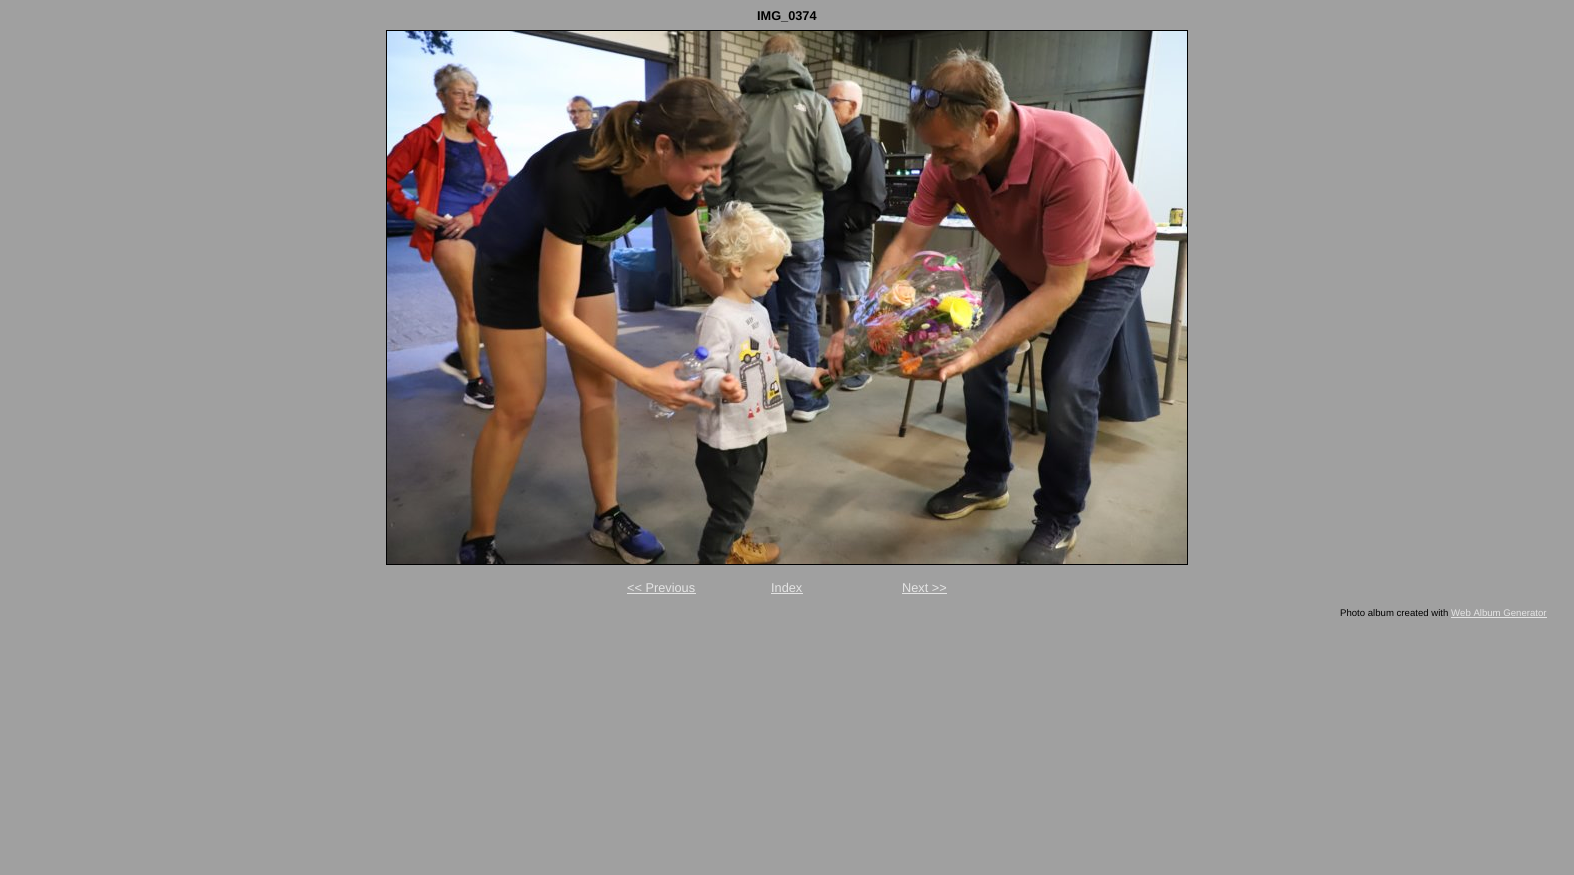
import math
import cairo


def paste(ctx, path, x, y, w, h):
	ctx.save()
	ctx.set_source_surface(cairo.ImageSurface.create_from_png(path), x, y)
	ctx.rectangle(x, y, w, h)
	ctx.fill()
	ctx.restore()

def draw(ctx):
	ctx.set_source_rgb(0.627, 0.627, 0.627)
	ctx.paint()
	ctx.select_font_face('Liberation Sans', cairo.FONT_SLANT_NORMAL, cairo.FONT_WEIGHT_BOLD)
	ctx.set_font_size(12.75)
	ctx.set_source_rgb(0, 0, 0)
	ctx.move_to(757, 20)
	ctx.show_text('IMG_0374')
	ctx.rectangle(386.5, 30.5, 801, 534)
	ctx.set_line_width(1)
	ctx.stroke()
	paste(ctx, 'media/1.png', 387, 31, 800, 533)
	ctx.select_font_face('Liberation Sans')
	ctx.set_source_rgb(0.894, 0.894, 0.894)
	ctx.move_to(627, 592)
	ctx.show_text('<< Previous')
	ctx.rectangle(627, 593, 69, 1)
	ctx.fill()
	ctx.move_to(771, 592)
	ctx.show_text('Index')
	ctx.rectangle(771, 593, 32, 1)
	ctx.fill()
	ctx.move_to(902, 592)
	ctx.show_text('Next >>')
	ctx.rectangle(902, 593, 45, 1)
	ctx.fill()
	ctx.set_font_size(9.6)
	ctx.set_source_rgb(0, 0, 0)
	ctx.move_to(1340, 616)
	ctx.show_text('Photo album created with')
	ctx.set_source_rgb(0.894, 0.894, 0.894)
	ctx.move_to(1451, 616)
	ctx.show_text('Web Album Generator')
	ctx.rectangle(1451, 617, 96, 1)
	ctx.fill()


surface = cairo.ImageSurface(cairo.FORMAT_RGB24, 1574, 875)
ctx = cairo.Context(surface)
options = cairo.FontOptions()
options.set_hint_metrics(cairo.HINT_METRICS_OFF)
options.set_hint_style(cairo.HINT_STYLE_NONE)
ctx.set_font_options(options)
ctx.set_miter_limit(4)
draw(ctx)
surface.write_to_png('image.png')
